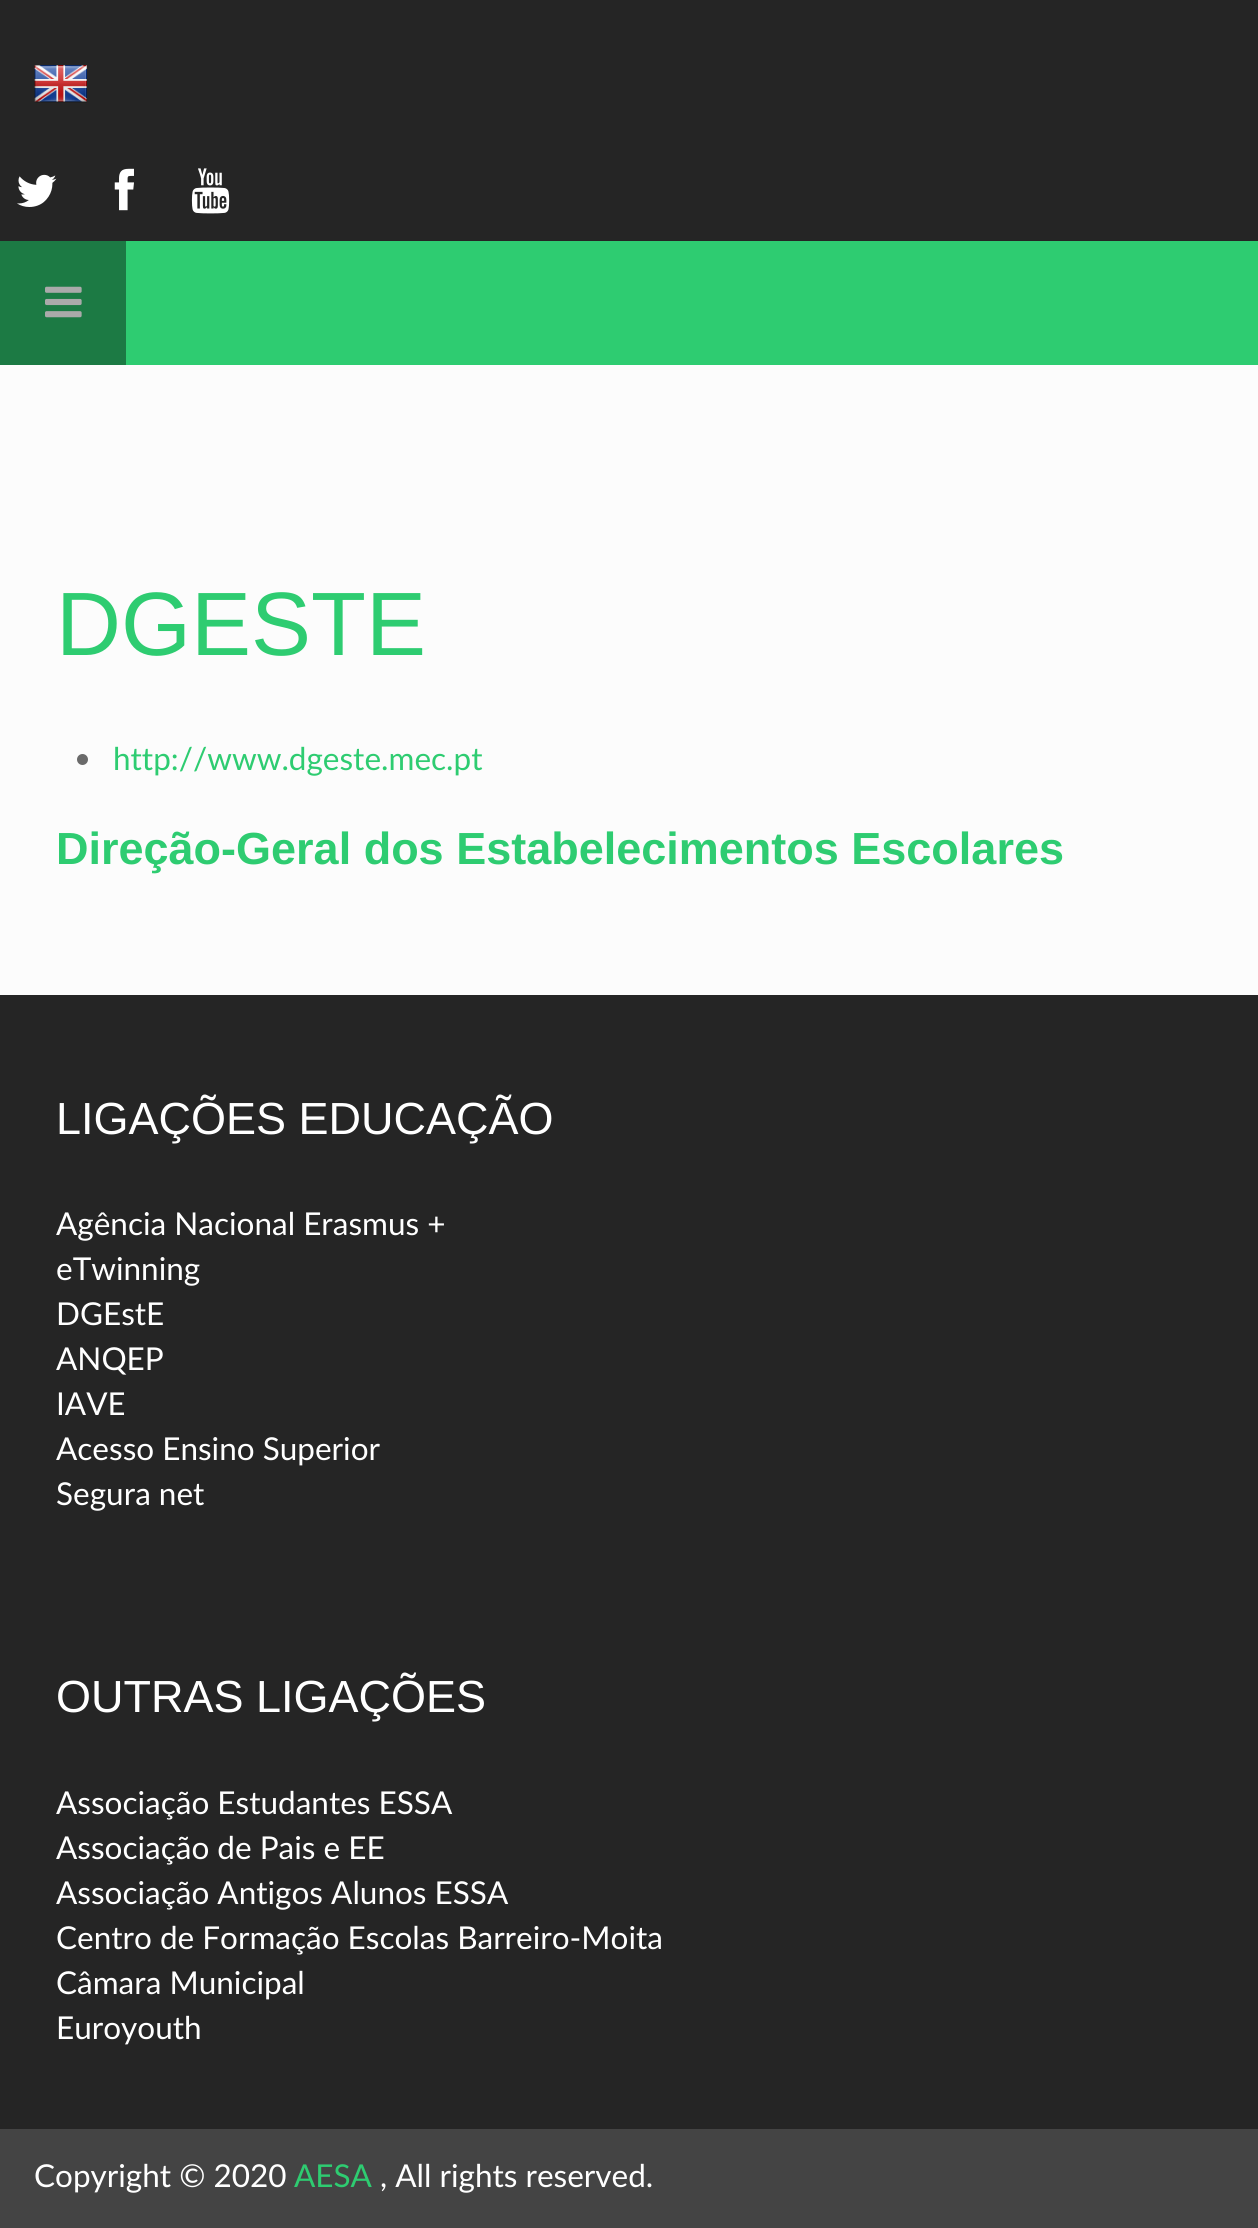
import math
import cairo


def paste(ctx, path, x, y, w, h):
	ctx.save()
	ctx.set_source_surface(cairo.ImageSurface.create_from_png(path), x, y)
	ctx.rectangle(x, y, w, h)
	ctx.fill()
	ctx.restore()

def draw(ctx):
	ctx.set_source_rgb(0.988, 0.988, 0.988)
	ctx.paint()
	ctx.set_source_rgb(0.145, 0.145, 0.145)
	ctx.rectangle(0, 0, 1258, 241)
	ctx.fill()
	paste(ctx, 'media/1.png', 34, 65, 53, 38)
	paste(ctx, 'media/2.png', 17, 174, 40, 33)
	paste(ctx, 'media/3.png', 114, 168, 20, 43)
	paste(ctx, 'media/4.png', 191, 168, 39, 46)
	ctx.set_source_rgb(0.18, 0.8, 0.443)
	ctx.rectangle(126, 241, 1132, 124)
	ctx.fill()
	ctx.set_source_rgb(0.11, 0.478, 0.267)
	ctx.rectangle(0, 241, 126, 124)
	ctx.fill()
	paste(ctx, 'media/5.png', 45, 286, 37, 32)
	ctx.select_font_face('Liberation Sans')
	ctx.set_font_size(90)
	ctx.set_source_rgb(0.18, 0.8, 0.443)
	ctx.move_to(56, 655)
	ctx.show_text('DGESTE')
	ctx.set_source_rgb(0.416, 0.416, 0.416)
	ctx.new_path()
	ctx.arc(82.5, 759.5, 5.5, 0, 2 * math.pi)
	ctx.fill()
	ctx.select_font_face('Lato')
	ctx.set_font_size(31.5)
	ctx.set_source_rgb(0.18, 0.8, 0.443)
	ctx.move_to(113, 770)
	ctx.show_text('http://www.dgeste.mec.pt')
	ctx.select_font_face('Liberation Sans', cairo.FONT_SLANT_NORMAL, cairo.FONT_WEIGHT_BOLD)
	ctx.set_font_size(45)
	ctx.move_to(56, 864)
	ctx.show_text('Direção-Geral dos Estabelecimentos Escolares')
	ctx.set_source_rgb(0.145, 0.145, 0.145)
	ctx.rectangle(0, 995, 1258, 1134)
	ctx.fill()
	ctx.select_font_face('Liberation Sans')
	ctx.set_source_rgb(1, 1, 1)
	ctx.move_to(56, 1134)
	ctx.show_text('LIGAÇÕES EDUCAÇÃO')
	ctx.select_font_face('Lato')
	ctx.set_font_size(31.5)
	for x, y, s in [
		(56, 1235, 'Agência Nacional Erasmus +'),
		(56, 1280, 'eTwinning'),
		(56, 1325, 'DGEstE'),
		(56, 1370, 'ANQEP'),
		(56, 1415, 'IAVE'),
		(56, 1460, 'Acesso Ensino Superior'),
		(56, 1505, 'Segura net'),
	]:
		ctx.move_to(x, y)
		ctx.show_text(s)
	ctx.select_font_face('Liberation Sans')
	ctx.set_font_size(45)
	ctx.move_to(56, 1712)
	ctx.show_text('OUTRAS LIGAÇÕES')
	ctx.select_font_face('Lato')
	ctx.set_font_size(31.5)
	for x, y, s in [
		(56, 1814, 'Associação Estudantes ESSA'),
		(56, 1859, 'Associação de Pais e EE'),
		(56, 1904, 'Associação Antigos Alunos ESSA'),
		(56, 1949, 'Centro de Formação Escolas Barreiro-Moita'),
		(56, 1994, 'Câmara Municipal'),
		(56, 2039, 'Euroyouth'),
	]:
		ctx.move_to(x, y)
		ctx.show_text(s)
	ctx.set_source_rgb(0.267, 0.267, 0.267)
	ctx.rectangle(0, 2129, 1258, 99)
	ctx.fill()
	ctx.set_source_rgb(1, 1, 1)
	ctx.move_to(34, 2187)
	ctx.show_text('Copyright © 2020')
	ctx.set_source_rgb(0.18, 0.8, 0.443)
	ctx.move_to(294, 2187)
	ctx.show_text('AESA')
	ctx.set_source_rgb(1, 1, 1)
	ctx.move_to(380, 2187)
	ctx.show_text(', All rights reserved.')


surface = cairo.ImageSurface(cairo.FORMAT_RGB24, 1258, 2228)
ctx = cairo.Context(surface)
options = cairo.FontOptions()
options.set_hint_metrics(cairo.HINT_METRICS_OFF)
options.set_hint_style(cairo.HINT_STYLE_NONE)
ctx.set_font_options(options)
ctx.set_miter_limit(4)
draw(ctx)
surface.write_to_png('image.png')
